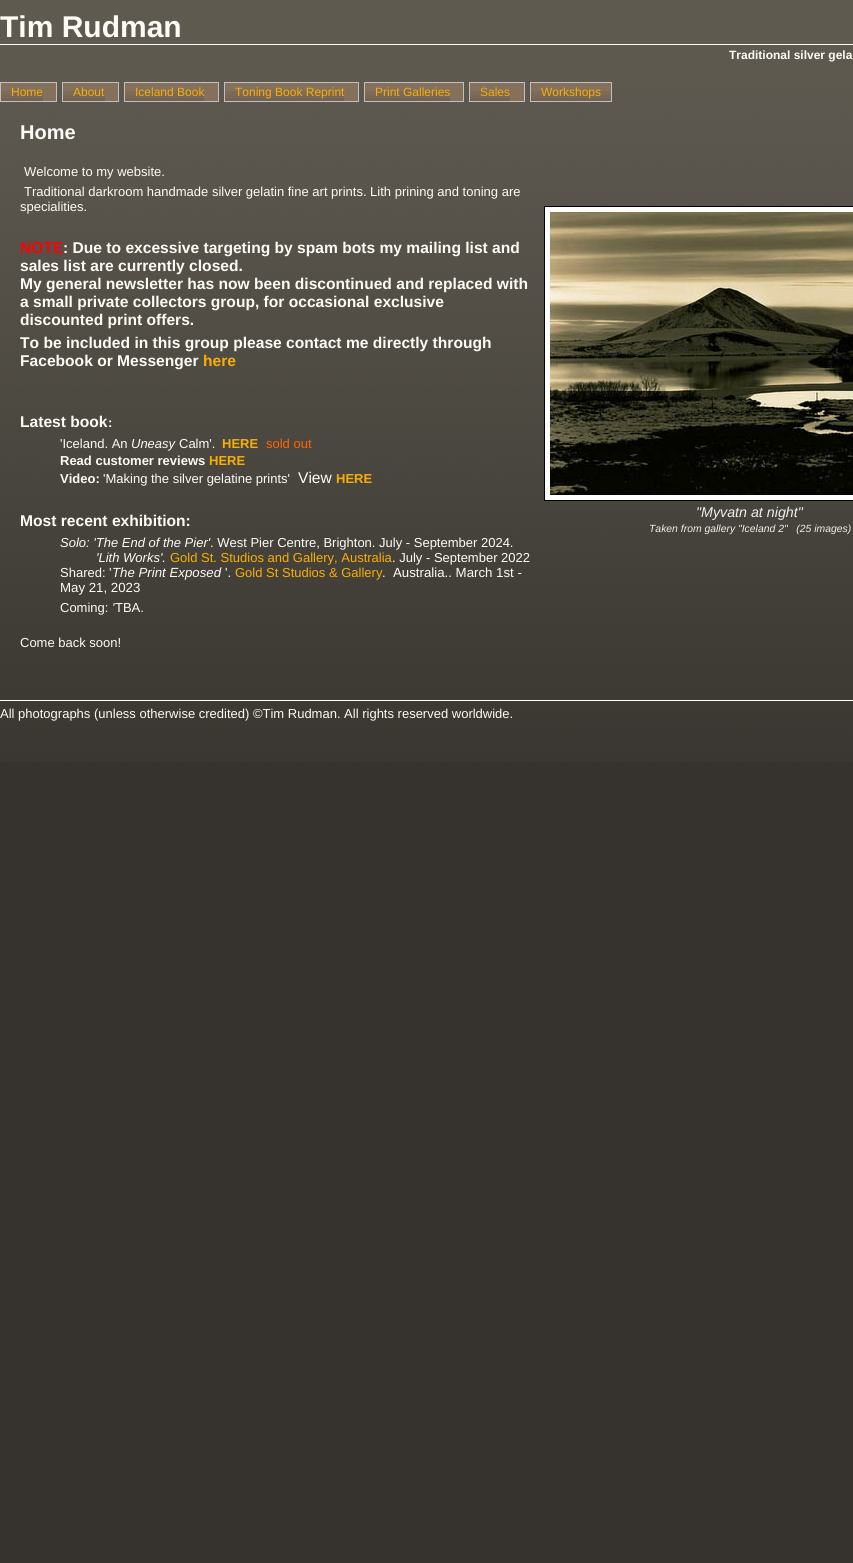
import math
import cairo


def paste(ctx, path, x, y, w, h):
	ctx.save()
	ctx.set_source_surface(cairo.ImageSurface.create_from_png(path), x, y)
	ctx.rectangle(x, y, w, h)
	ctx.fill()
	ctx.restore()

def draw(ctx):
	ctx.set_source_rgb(0.212, 0.2, 0.18)
	ctx.paint()
	paste(ctx, 'media/1.png', 0, 0, 853, 762)
	ctx.set_source_rgb(0.988, 0.984, 0.961)
	ctx.rectangle(0, 44, 853, 1)
	ctx.fill()
	ctx.select_font_face('Liberation Sans', cairo.FONT_SLANT_NORMAL, cairo.FONT_WEIGHT_BOLD)
	ctx.set_font_size(30)
	ctx.move_to(0, 37)
	ctx.show_text('Tim Rudman')
	ctx.set_font_size(12)
	ctx.move_to(729, 59)
	ctx.show_text('Traditional silver gela')
	paste(ctx, 'media/2.png', 1, 83, 42, 18)
	paste(ctx, 'media/2.png', 63, 83, 42, 18)
	paste(ctx, 'media/3.png', 125, 83, 79, 18)
	paste(ctx, 'media/4.png', 225, 83, 119, 18)
	paste(ctx, 'media/5.png', 365, 83, 85, 18)
	paste(ctx, 'media/6.png', 470, 83, 40, 18)
	ctx.select_font_face('Liberation Sans')
	ctx.set_source_rgb(0.976, 0.682, 0.027)
	ctx.move_to(11, 96)
	ctx.show_text('Home')
	ctx.set_source_rgb(0.753, 0.753, 0.753)
	ctx.rectangle(0, 82, 57, 1)
	ctx.rectangle(0, 101, 43, 1)
	ctx.rectangle(0, 82, 1, 20)
	ctx.fill()
	ctx.set_source_rgb(0.518, 0.439, 0.357)
	ctx.rectangle(43, 83, 13, 18)
	ctx.fill()
	ctx.set_source_rgb(0.753, 0.753, 0.753)
	ctx.rectangle(56, 82, 1, 20)
	ctx.rectangle(43, 101, 14, 1)
	ctx.fill()
	ctx.set_source_rgb(0.976, 0.682, 0.027)
	ctx.move_to(73, 96)
	ctx.show_text('About')
	ctx.set_source_rgb(0.753, 0.753, 0.753)
	ctx.rectangle(62, 82, 57, 1)
	ctx.rectangle(62, 101, 43, 1)
	ctx.rectangle(62, 82, 1, 20)
	ctx.fill()
	ctx.set_source_rgb(0.518, 0.439, 0.357)
	ctx.rectangle(105, 83, 13, 18)
	ctx.fill()
	ctx.set_source_rgb(0.753, 0.753, 0.753)
	ctx.rectangle(118, 82, 1, 20)
	ctx.rectangle(105, 101, 14, 1)
	ctx.fill()
	ctx.set_source_rgb(0.518, 0.439, 0.357)
	ctx.rectangle(204, 83, 14, 18)
	ctx.fill()
	ctx.set_source_rgb(0.976, 0.682, 0.027)
	ctx.move_to(135, 96)
	ctx.show_text('Iceland Book')
	ctx.set_source_rgb(0.753, 0.753, 0.753)
	ctx.rectangle(124, 82, 95, 1)
	ctx.rectangle(124, 101, 80, 1)
	ctx.rectangle(124, 82, 1, 20)
	ctx.rectangle(218, 82, 1, 20)
	ctx.rectangle(204, 101, 15, 1)
	ctx.fill()
	ctx.set_source_rgb(0.518, 0.439, 0.357)
	ctx.rectangle(344, 83, 14, 18)
	ctx.fill()
	ctx.set_source_rgb(0.976, 0.682, 0.027)
	ctx.move_to(235, 96)
	ctx.show_text('Toning Book Reprint')
	ctx.set_source_rgb(0.753, 0.753, 0.753)
	ctx.rectangle(224, 82, 135, 1)
	ctx.rectangle(224, 101, 120, 1)
	ctx.rectangle(224, 82, 1, 20)
	ctx.rectangle(358, 82, 1, 20)
	ctx.rectangle(344, 101, 15, 1)
	ctx.fill()
	ctx.set_source_rgb(0.976, 0.682, 0.027)
	ctx.move_to(375, 96)
	ctx.show_text('Print Galleries')
	ctx.set_source_rgb(0.753, 0.753, 0.753)
	ctx.rectangle(364, 82, 100, 1)
	ctx.rectangle(364, 101, 86, 1)
	ctx.rectangle(364, 82, 1, 20)
	ctx.fill()
	ctx.set_source_rgb(0.518, 0.439, 0.357)
	ctx.rectangle(450, 83, 13, 18)
	ctx.fill()
	ctx.set_source_rgb(0.753, 0.753, 0.753)
	ctx.rectangle(463, 82, 1, 20)
	ctx.rectangle(450, 101, 14, 1)
	ctx.fill()
	ctx.set_source_rgb(0.976, 0.682, 0.027)
	ctx.move_to(480, 96)
	ctx.show_text('Sales')
	ctx.set_source_rgb(0.753, 0.753, 0.753)
	ctx.rectangle(469, 82, 56, 1)
	ctx.rectangle(469, 101, 41, 1)
	ctx.rectangle(469, 82, 1, 20)
	ctx.fill()
	ctx.set_source_rgb(0.518, 0.439, 0.357)
	ctx.rectangle(510, 83, 14, 18)
	ctx.fill()
	ctx.set_source_rgb(0.753, 0.753, 0.753)
	ctx.rectangle(524, 82, 1, 20)
	ctx.rectangle(510, 101, 15, 1)
	ctx.fill()
	ctx.set_source_rgb(0.518, 0.439, 0.357)
	ctx.rectangle(531, 83, 80, 8)
	ctx.fill()
	paste(ctx, 'media/7.png', 531, 91, 80, 10)
	ctx.rectangle(530.5, 82.5, 81, 19)
	ctx.set_source_rgb(0.753, 0.753, 0.753)
	ctx.set_line_width(1)
	ctx.stroke()
	ctx.set_source_rgb(0.976, 0.682, 0.027)
	ctx.move_to(541, 96)
	ctx.show_text('Workshops')
	ctx.select_font_face('Liberation Sans', cairo.FONT_SLANT_NORMAL, cairo.FONT_WEIGHT_BOLD)
	ctx.set_font_size(20)
	ctx.set_source_rgb(0.988, 0.984, 0.961)
	ctx.move_to(20, 139)
	ctx.show_text('Home')
	ctx.select_font_face('Liberation Sans')
	ctx.set_font_size(13)
	for x, y, s in [
		(24, 176, 'Welcome to my website.'),
		(24, 196, 'Traditional darkroom handmade silver gelatin fine art prints. Lith prining and toning are'),
		(20, 211, 'specialities.'),
	]:
		ctx.move_to(x, y)
		ctx.show_text(s)
	ctx.select_font_face('Liberation Sans', cairo.FONT_SLANT_NORMAL, cairo.FONT_WEIGHT_BOLD)
	ctx.set_font_size(15.6)
	ctx.set_source_rgb(1, 0, 0)
	ctx.move_to(20, 253)
	ctx.show_text('NOTE')
	ctx.set_source_rgb(0.988, 0.984, 0.961)
	for x, y, s in [
		(63, 253, ': Due to excessive targeting by spam bots my mailing list and'),
		(20, 271, 'sales list are currently closed.'),
		(20, 289, 'My general newsletter has now been discontinued and replaced with'),
		(20, 307, 'a small private collectors group, for occasional exclusive'),
		(20, 325, 'discounted print offers.'),
		(20, 348, 'To be included in this group please contact me directly through'),
		(20, 366, 'Facebook or Messenger'),
	]:
		ctx.move_to(x, y)
		ctx.show_text(s)
	ctx.set_source_rgb(0.976, 0.682, 0.027)
	ctx.move_to(203, 366)
	ctx.show_text('here')
	ctx.set_source_rgb(0.988, 0.984, 0.961)
	ctx.move_to(20, 427)
	ctx.show_text('Latest book')
	ctx.set_font_size(13)
	ctx.move_to(108, 427)
	ctx.show_text(':')
	ctx.select_font_face('Liberation Sans')
	ctx.move_to(60, 448)
	ctx.show_text('\'Iceland. An')
	ctx.select_font_face('Liberation Sans', cairo.FONT_SLANT_ITALIC)
	ctx.move_to(131, 448)
	ctx.show_text('Uneasy')
	ctx.select_font_face('Liberation Sans')
	ctx.move_to(179, 448)
	ctx.show_text('Calm\'.')
	ctx.select_font_face('Liberation Sans', cairo.FONT_SLANT_NORMAL, cairo.FONT_WEIGHT_BOLD)
	ctx.set_source_rgb(0.976, 0.682, 0.027)
	ctx.move_to(222, 448)
	ctx.show_text('HERE')
	ctx.select_font_face('Liberation Sans')
	ctx.set_source_rgb(1, 0.4, 0)
	ctx.move_to(266, 448)
	ctx.show_text('sold out')
	ctx.select_font_face('Liberation Sans', cairo.FONT_SLANT_NORMAL, cairo.FONT_WEIGHT_BOLD)
	ctx.set_source_rgb(0.988, 0.984, 0.961)
	ctx.move_to(60, 465)
	ctx.show_text('Read customer reviews')
	ctx.set_source_rgb(0.976, 0.682, 0.027)
	ctx.move_to(209, 465)
	ctx.show_text('HERE')
	ctx.set_source_rgb(0.988, 0.984, 0.961)
	ctx.move_to(60, 483)
	ctx.show_text('Video:')
	ctx.select_font_face('Liberation Sans')
	ctx.move_to(103, 483)
	ctx.show_text('\'Making the silver gelatine prints\'')
	ctx.set_font_size(15.6)
	ctx.move_to(298, 483)
	ctx.show_text('View')
	ctx.select_font_face('Liberation Sans', cairo.FONT_SLANT_NORMAL, cairo.FONT_WEIGHT_BOLD)
	ctx.set_font_size(13)
	ctx.set_source_rgb(0.976, 0.682, 0.027)
	ctx.move_to(336, 483)
	ctx.show_text('HERE')
	ctx.set_font_size(15.6)
	ctx.set_source_rgb(0.988, 0.984, 0.961)
	ctx.move_to(20, 526)
	ctx.show_text('Most recent exhibition:')
	ctx.select_font_face('Liberation Sans', cairo.FONT_SLANT_ITALIC)
	ctx.set_font_size(13)
	ctx.move_to(60, 547)
	ctx.show_text('Solo: \'The End of the Pier\'')
	ctx.select_font_face('Liberation Sans')
	ctx.move_to(210, 547)
	ctx.show_text('. West Pier Centre, Brighton. July - September 2024.')
	ctx.select_font_face('Liberation Sans', cairo.FONT_SLANT_ITALIC)
	ctx.move_to(96, 562)
	ctx.show_text('\'Lith Works\'.')
	ctx.select_font_face('Liberation Sans')
	ctx.set_source_rgb(0.976, 0.682, 0.027)
	ctx.move_to(170, 562)
	ctx.show_text('Gold St. Studios and Gallery, Australia')
	ctx.set_source_rgb(0.988, 0.984, 0.961)
	ctx.move_to(392, 562)
	ctx.show_text('. July - September 2022')
	ctx.move_to(60, 577)
	ctx.show_text('Shared:')
	ctx.set_font_size(13.25)
	ctx.move_to(109, 577)
	ctx.show_text('\'')
	ctx.select_font_face('Liberation Sans', cairo.FONT_SLANT_ITALIC)
	ctx.move_to(112, 577)
	ctx.show_text('The Print Exposed')
	ctx.select_font_face('Liberation Sans')
	ctx.move_to(225, 577)
	ctx.show_text('\'.')
	ctx.set_font_size(13)
	ctx.set_source_rgb(0.976, 0.682, 0.027)
	ctx.move_to(235, 577)
	ctx.show_text('Gold St Studios & Gallery')
	ctx.set_source_rgb(0.988, 0.984, 0.961)
	ctx.move_to(382, 577)
	ctx.show_text('.')
	ctx.set_font_size(13.25)
	ctx.move_to(393, 577)
	ctx.show_text('Australia.. March 1st -')
	ctx.move_to(60, 592)
	ctx.show_text('May 21, 2023')
	ctx.set_font_size(13)
	ctx.move_to(60, 612)
	ctx.show_text('Coming:')
	ctx.select_font_face('Liberation Sans', cairo.FONT_SLANT_ITALIC)
	ctx.move_to(112, 612)
	ctx.show_text('\'')
	ctx.select_font_face('Liberation Sans')
	ctx.move_to(115, 612)
	ctx.show_text('TBA.')
	ctx.move_to(20, 647)
	ctx.show_text('Come back soon!')
	ctx.set_source_rgb(1, 1, 1)
	ctx.rectangle(544.5, 206.5, 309, 294)
	ctx.fill_preserve()
	ctx.set_source_rgb(0, 0, 0)
	ctx.stroke()
	paste(ctx, 'media/8.png', 550, 212, 303, 283)
	ctx.select_font_face('Liberation Sans', cairo.FONT_SLANT_ITALIC)
	ctx.set_font_size(14.25)
	ctx.set_source_rgb(0.933, 0.933, 0.933)
	ctx.move_to(696, 517)
	ctx.show_text('"Myvatn at night"')
	ctx.set_font_size(10.4)
	ctx.move_to(649, 532)
	ctx.show_text('Taken from gallery "Iceland 2"   (25 images)')
	ctx.set_source_rgb(1, 1, 1)
	ctx.rectangle(0, 700, 853, 1)
	ctx.fill()
	ctx.select_font_face('Liberation Sans')
	ctx.set_font_size(13)
	ctx.set_source_rgb(0.988, 0.984, 0.961)
	ctx.move_to(0, 718)
	ctx.show_text('All photographs (unless otherwise credited) ©Tim Rudman. All rights reserved worldwide.')


surface = cairo.ImageSurface(cairo.FORMAT_RGB24, 853, 1563)
ctx = cairo.Context(surface)
options = cairo.FontOptions()
options.set_hint_metrics(cairo.HINT_METRICS_OFF)
options.set_hint_style(cairo.HINT_STYLE_NONE)
ctx.set_font_options(options)
ctx.set_miter_limit(4)
draw(ctx)
surface.write_to_png('image.png')
